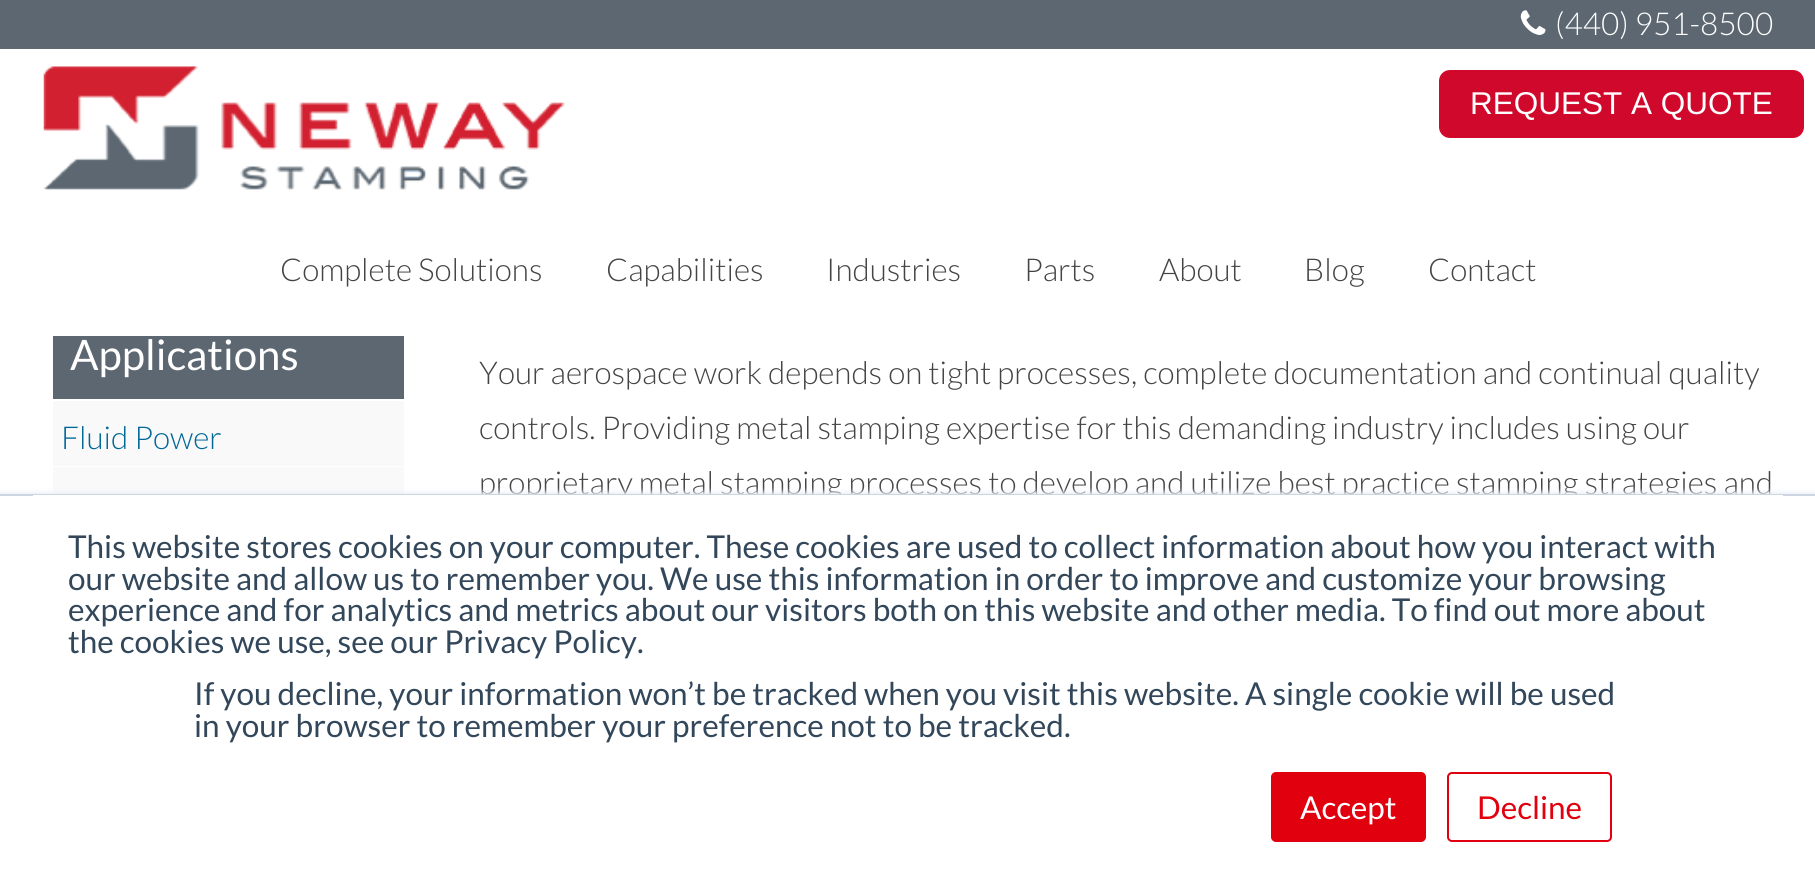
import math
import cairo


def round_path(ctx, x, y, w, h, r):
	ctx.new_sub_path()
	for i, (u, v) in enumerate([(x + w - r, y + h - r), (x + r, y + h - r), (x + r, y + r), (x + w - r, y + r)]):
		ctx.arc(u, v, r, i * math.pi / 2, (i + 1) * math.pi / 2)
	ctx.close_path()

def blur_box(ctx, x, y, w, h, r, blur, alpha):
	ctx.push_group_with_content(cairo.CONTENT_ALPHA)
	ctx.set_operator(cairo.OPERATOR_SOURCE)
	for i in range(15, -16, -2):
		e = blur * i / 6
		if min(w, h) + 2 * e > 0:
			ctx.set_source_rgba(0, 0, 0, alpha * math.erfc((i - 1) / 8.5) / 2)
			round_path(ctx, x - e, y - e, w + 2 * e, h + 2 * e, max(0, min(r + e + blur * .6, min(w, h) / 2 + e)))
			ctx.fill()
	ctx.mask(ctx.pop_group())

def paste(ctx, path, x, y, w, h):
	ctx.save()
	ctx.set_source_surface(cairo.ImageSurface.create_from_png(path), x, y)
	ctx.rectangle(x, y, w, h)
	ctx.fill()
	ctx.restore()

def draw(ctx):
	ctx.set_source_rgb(1, 1, 1)
	ctx.paint()
	ctx.set_source_rgb(0.361, 0.404, 0.443)
	ctx.rectangle(0, 0, 1815, 49)
	ctx.fill()
	paste(ctx, 'media/1.png', 1520, 10, 26, 25)
	ctx.select_font_face('Lato Light')
	ctx.set_font_size(31.5)
	ctx.set_source_rgb(1, 1, 1)
	ctx.move_to(1555, 35)
	ctx.show_text('(440) 951-8500')
	paste(ctx, 'media/2.png', 43, 66, 522, 124)
	ctx.set_source_rgb(0.816, 0.039, 0.173)
	round_path(ctx, 1439, 70, 365, 68, 11)
	ctx.fill()
	ctx.select_font_face('Liberation Sans')
	ctx.set_source_rgb(1, 1, 1)
	ctx.move_to(1470, 114)
	ctx.show_text('REQUEST A QUOTE')
	ctx.select_font_face('Lato Light')
	ctx.set_source_rgb(0.267, 0.267, 0.267)
	for x, y, s in [
		(280, 281, 'Complete Solutions'),
		(606, 281, 'Capabilities'),
		(826, 281, 'Industries'),
		(1024, 281, 'Parts'),
		(1159, 281, 'About'),
		(1304, 281, 'Blog'),
		(1428, 281, 'Contact'),
	]:
		ctx.move_to(x, y)
		ctx.show_text(s)
	ctx.set_source_rgb(0.361, 0.404, 0.443)
	ctx.rectangle(53, 336, 351, 63)
	ctx.fill()
	ctx.select_font_face('Lato')
	ctx.set_font_size(42)
	ctx.set_source_rgb(1, 1, 1)
	ctx.move_to(70, 370)
	ctx.show_text('Applications')
	ctx.set_source_rgb(0.976, 0.976, 0.976)
	ctx.rectangle(53, 401, 351, 65)
	ctx.fill()
	ctx.select_font_face('Lato Light')
	ctx.set_font_size(31.5)
	ctx.set_source_rgb(0, 0.404, 0.592)
	ctx.move_to(61, 449)
	ctx.show_text('Fluid Power')
	ctx.set_source_rgb(0.976, 0.976, 0.976)
	ctx.rectangle(53, 467, 351, 27)
	ctx.fill()
	ctx.set_source_rgb(0.267, 0.267, 0.267)
	for x, y, s in [
		(479, 384, 'Your aerospace work depends on tight processes, complete documentation and continual quality'),
		(479, 439, 'controls. Providing metal stamping expertise for this demanding industry includes using our'),
		(479, 494, 'proprietary metal stamping processes to develop and utilize best practice stamping strategies and'),
	]:
		ctx.move_to(x, y)
		ctx.show_text(s)
	ctx.set_source_rgb(0.918, 0.941, 0.965)
	blur_box(ctx, 0, 492, 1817, 394, 0, 2.5, 1)
	ctx.set_source_rgb(1, 1, 1)
	ctx.rectangle(0, 496, 1815, 391)
	ctx.fill()
	ctx.set_source_rgb(0.796, 0.839, 0.886)
	ctx.rectangle(0, 494, 1815, 2)
	ctx.fill()
	ctx.set_source_rgb(1, 1, 1)
	ctx.rectangle(33, 495, 1750, 1)
	ctx.fill()
	ctx.select_font_face('Lato')
	ctx.set_source_rgb(0.2, 0.278, 0.357)
	for x, y, s in [
		(68, 558, 'This website stores cookies on your computer. These cookies are used to collect information about how you interact with'),
		(68, 590, 'our website and allow us to remember you. We use this information in order to improve and customize your browsing'),
		(68, 621, 'experience and for analytics and metrics about our visitors both on this website and other media. To find out more about'),
		(68, 653, 'the cookies we use, see our Privacy Policy.'),
		(194, 705, 'If you decline, your information won’t be tracked when you visit this website. A single cookie will be used'),
		(194, 737, 'in your browser to remember your preference not to be tracked.'),
	]:
		ctx.move_to(x, y)
		ctx.show_text(s)
	ctx.set_source_rgb(0.882, 0, 0.051)
	round_path(ctx, 1272, 773, 153, 68, 4)
	ctx.fill_preserve()
	ctx.stroke()
	ctx.set_source_rgb(1, 1, 1)
	ctx.move_to(1300, 819)
	ctx.show_text('Accept')
	round_path(ctx, 1448, 773, 163, 68, 4)
	ctx.set_source_rgb(0.882, 0, 0.051)
	ctx.stroke()
	ctx.move_to(1477, 819)
	ctx.show_text('Decline')


surface = cairo.ImageSurface(cairo.FORMAT_RGB24, 1815, 887)
ctx = cairo.Context(surface)
options = cairo.FontOptions()
options.set_hint_metrics(cairo.HINT_METRICS_OFF)
options.set_hint_style(cairo.HINT_STYLE_NONE)
ctx.set_font_options(options)
ctx.set_miter_limit(4)
draw(ctx)
surface.write_to_png('image.png')
